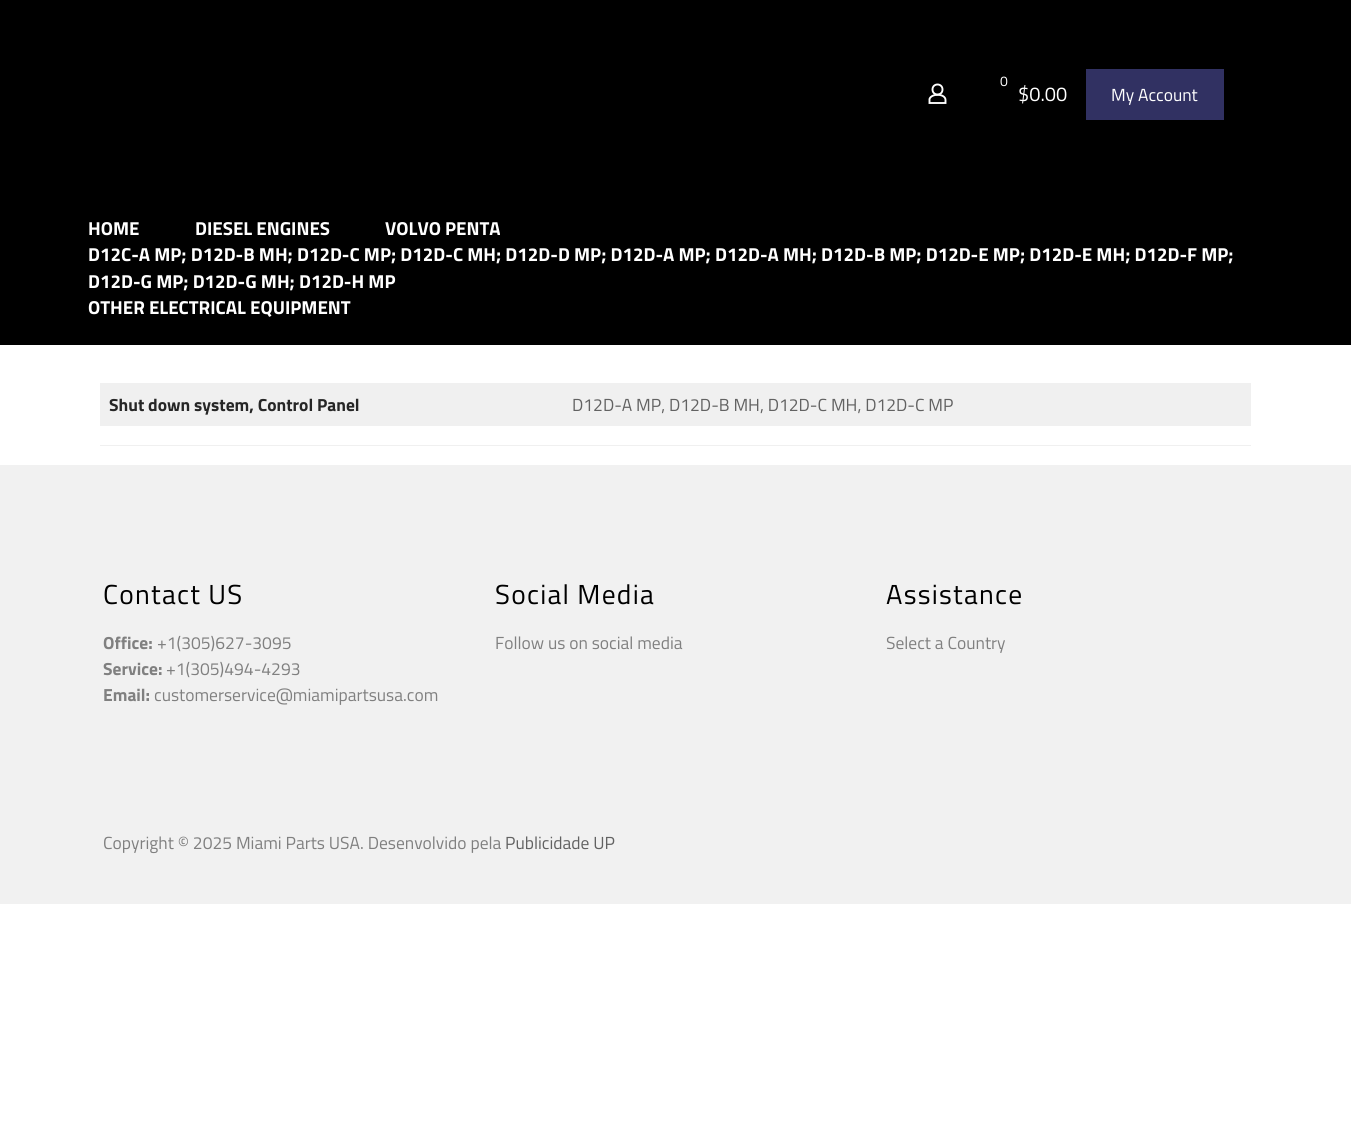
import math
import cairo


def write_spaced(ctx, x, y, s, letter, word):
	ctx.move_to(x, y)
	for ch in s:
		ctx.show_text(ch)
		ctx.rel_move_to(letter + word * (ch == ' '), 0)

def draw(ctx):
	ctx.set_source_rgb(1, 1, 1)
	ctx.paint()
	ctx.set_source_rgb(0, 0, 0)
	ctx.rectangle(0, 0, 1351, 345)
	ctx.fill()
	ctx.arc(937.5, 89.5, 5, 0, 2 * math.pi)
	ctx.set_source_rgb(1, 1, 1)
	ctx.set_line_width(1.9)
	ctx.stroke()
	ctx.new_path()
	ctx.move_to(945.5, 100)
	ctx.line_to(945.5, 103)
	ctx.line_to(929.5, 103)
	ctx.line_to(929.5, 99)
	ctx.curve_to(931.5, 93, 945.5, 93.5, 945.5, 100)
	ctx.close_path()
	ctx.stroke()
	ctx.select_font_face('Titillium Web')
	ctx.set_font_size(14)
	ctx.move_to(1000, 86)
	ctx.show_text('0')
	ctx.set_font_size(20)
	ctx.move_to(1018, 101)
	ctx.show_text('$0.00')
	ctx.set_source_rgb(0.192, 0.192, 0.384)
	ctx.rectangle(1086, 69, 138, 51)
	ctx.fill()
	ctx.set_font_size(17.5)
	ctx.set_source_rgb(1, 1, 1)
	ctx.move_to(1111, 101)
	ctx.show_text('My Account')
	ctx.select_font_face('Titillium Web', cairo.FONT_SLANT_NORMAL, cairo.FONT_WEIGHT_BOLD)
	ctx.set_font_size(18.75)
	for x, y, s in [
		(88, 235, 'HOME'),
		(195, 235, 'DIESEL ENGINES'),
		(385, 235, 'VOLVO PENTA'),
		(88, 261, 'D12C-A MP; D12D-B MH; D12D-C MP; D12D-C MH; D12D-D MP; D12D-A MP; D12D-A MH; D12D-B MP; D12D-E MP; D12D-E MH; D12D-F MP;'),
		(88, 288, 'D12D-G MP; D12D-G MH; D12D-H MP'),
		(88, 314, 'OTHER ELECTRICAL EQUIPMENT'),
	]:
		ctx.move_to(x, y)
		ctx.show_text(s)
	ctx.set_source_rgb(0.941, 0.941, 0.941)
	ctx.rectangle(100, 445, 1151, 1)
	ctx.fill()
	ctx.rectangle(100, 383, 1151, 43)
	ctx.fill()
	ctx.set_font_size(17.5)
	ctx.set_source_rgb(0.149, 0.149, 0.149)
	ctx.move_to(109, 411)
	ctx.show_text('Shut down system, Control Panel')
	ctx.select_font_face('Titillium Web')
	ctx.set_source_rgb(0.384, 0.384, 0.384)
	ctx.move_to(572, 411)
	ctx.show_text('D12D-A MP, D12D-B MH, D12D-C MH, D12D-C MP')
	ctx.set_source_rgb(0.945, 0.945, 0.945)
	ctx.rectangle(0, 465, 1351, 439)
	ctx.fill()
	ctx.set_font_size(27.5)
	ctx.set_source_rgb(0, 0, 0)
	write_spaced(ctx, 103, 604, 'Contact US', 1.25, 0)
	ctx.select_font_face('Titillium Web', cairo.FONT_SLANT_NORMAL, cairo.FONT_WEIGHT_BOLD)
	ctx.set_font_size(17.5)
	ctx.set_source_rgb(0.502, 0.502, 0.502)
	ctx.move_to(103, 649)
	ctx.show_text('Office:')
	ctx.select_font_face('Titillium Web')
	ctx.move_to(157, 649)
	ctx.show_text('+1(305)627-3095')
	ctx.select_font_face('Titillium Web', cairo.FONT_SLANT_NORMAL, cairo.FONT_WEIGHT_BOLD)
	ctx.move_to(103, 675)
	ctx.show_text('Service:')
	ctx.select_font_face('Titillium Web')
	ctx.move_to(166, 675)
	ctx.show_text('+1(305)494-4293')
	ctx.select_font_face('Titillium Web', cairo.FONT_SLANT_NORMAL, cairo.FONT_WEIGHT_BOLD)
	ctx.move_to(103, 701)
	ctx.show_text('Email:')
	ctx.select_font_face('Titillium Web')
	ctx.move_to(154, 701)
	ctx.show_text('customerservice@miamipartsusa.com')
	ctx.set_font_size(27.5)
	ctx.set_source_rgb(0, 0, 0)
	write_spaced(ctx, 495, 604, 'Social Media', 1.25, 0)
	ctx.set_font_size(17.5)
	ctx.set_source_rgb(0.502, 0.502, 0.502)
	ctx.move_to(495, 649)
	ctx.show_text('Follow us on social media')
	ctx.set_font_size(27.5)
	ctx.set_source_rgb(0, 0, 0)
	write_spaced(ctx, 886, 604, 'Assistance', 1.25, 0)
	ctx.set_font_size(17.5)
	ctx.set_source_rgb(0.502, 0.502, 0.502)
	ctx.move_to(886, 649)
	ctx.show_text('Select a Country')
	ctx.move_to(103, 849)
	ctx.show_text('Copyright © 2025 Miami Parts USA. Desenvolvido pela')
	ctx.set_source_rgb(0.384, 0.384, 0.384)
	ctx.move_to(505, 849)
	ctx.show_text('Publicidade UP')


surface = cairo.ImageSurface(cairo.FORMAT_RGB24, 1351, 1128)
ctx = cairo.Context(surface)
options = cairo.FontOptions()
options.set_hint_metrics(cairo.HINT_METRICS_OFF)
options.set_hint_style(cairo.HINT_STYLE_NONE)
ctx.set_font_options(options)
ctx.set_miter_limit(4)
draw(ctx)
surface.write_to_png('image.png')
